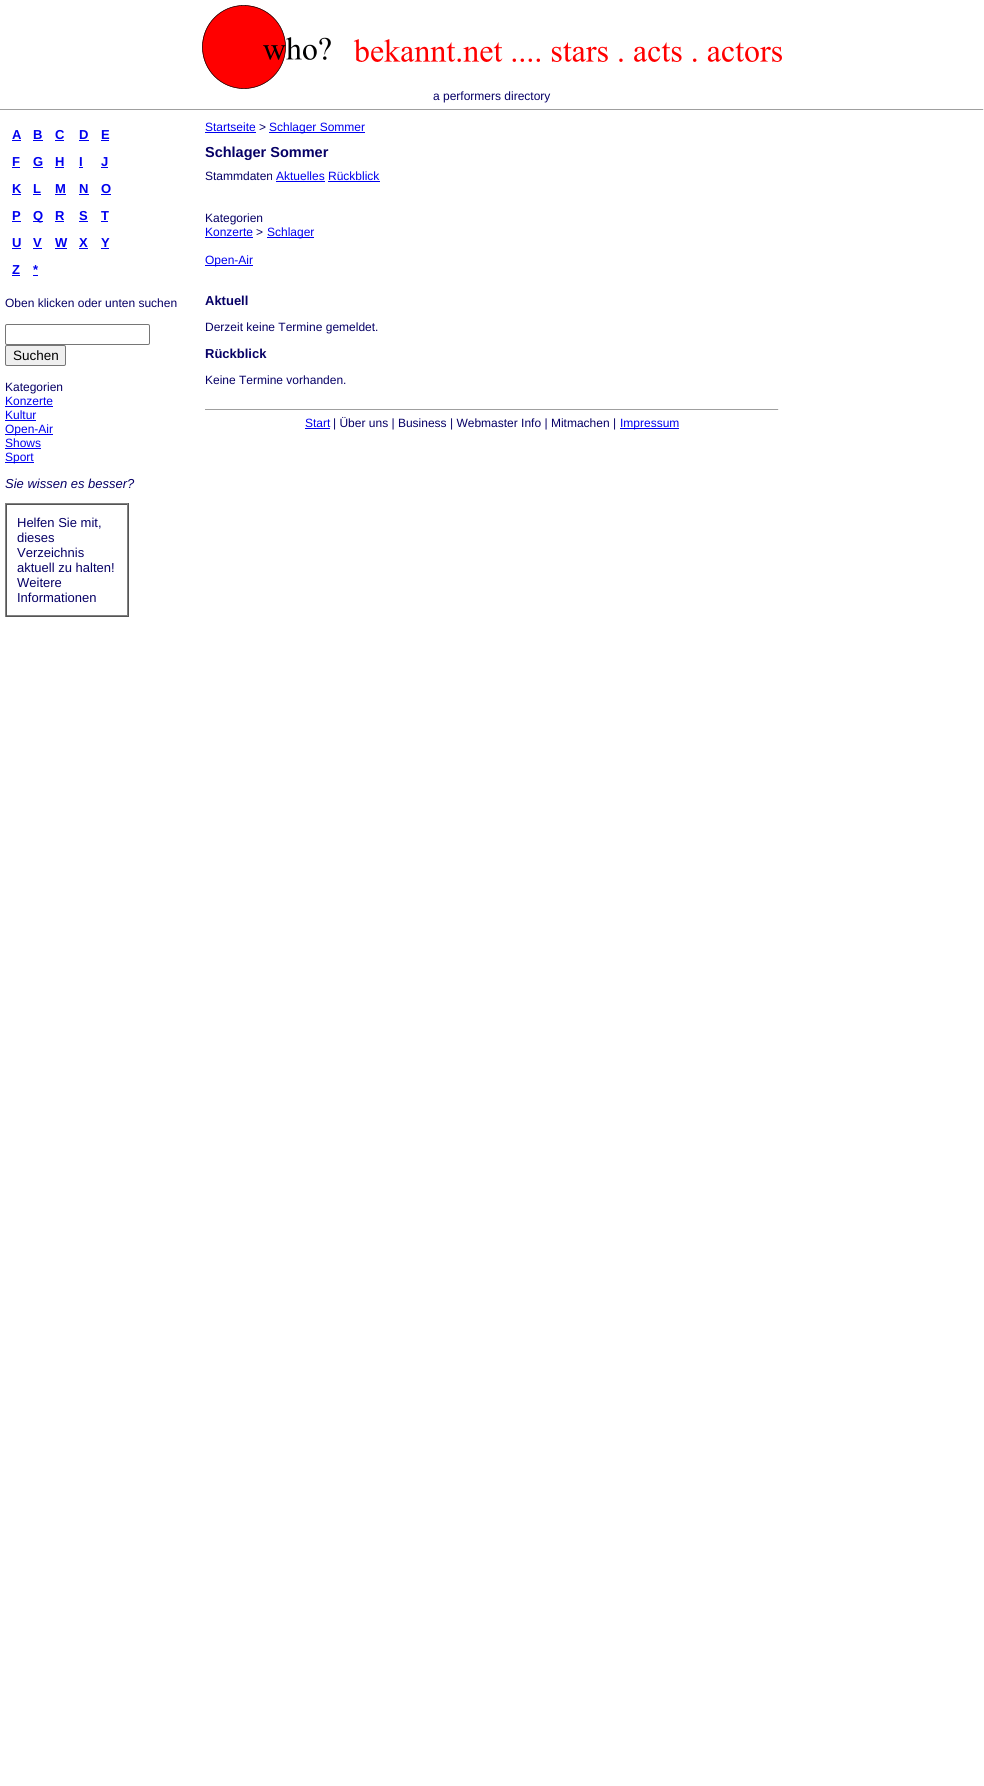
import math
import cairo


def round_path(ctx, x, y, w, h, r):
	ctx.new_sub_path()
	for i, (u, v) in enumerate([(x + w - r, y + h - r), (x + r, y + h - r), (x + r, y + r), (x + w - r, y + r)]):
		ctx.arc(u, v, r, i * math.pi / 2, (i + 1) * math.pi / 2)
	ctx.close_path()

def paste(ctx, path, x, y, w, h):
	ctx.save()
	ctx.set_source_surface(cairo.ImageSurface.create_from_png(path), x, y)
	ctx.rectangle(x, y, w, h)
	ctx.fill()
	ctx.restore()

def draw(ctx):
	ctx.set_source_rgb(1, 1, 1)
	ctx.paint()
	paste(ctx, 'media/1.png', 202, 5, 580, 84)
	ctx.select_font_face('Liberation Sans')
	ctx.set_font_size(12)
	ctx.set_source_rgb(0.027, 0, 0.4)
	ctx.move_to(433, 100)
	ctx.show_text('a performers directory')
	ctx.set_source_rgb(0.624, 0.624, 0.624)
	ctx.rectangle(0, 109, 984, 1)
	ctx.fill()
	ctx.set_source_rgb(0.933, 0.933, 0.933)
	ctx.rectangle(983, 109, 1, 1)
	ctx.fill()
	ctx.select_font_face('Liberation Sans', cairo.FONT_SLANT_NORMAL, cairo.FONT_WEIGHT_BOLD)
	ctx.set_font_size(13)
	ctx.set_source_rgb(0, 0, 0.933)
	ctx.move_to(12, 139)
	ctx.show_text('A')
	ctx.rectangle(12, 140, 9, 1)
	ctx.fill()
	ctx.move_to(33, 139)
	ctx.show_text('B')
	ctx.rectangle(33, 140, 10, 1)
	ctx.fill()
	ctx.move_to(55, 139)
	ctx.show_text('C')
	ctx.rectangle(55, 140, 9, 1)
	ctx.fill()
	ctx.move_to(79, 139)
	ctx.show_text('D')
	ctx.rectangle(79, 140, 10, 1)
	ctx.fill()
	ctx.move_to(101, 139)
	ctx.show_text('E')
	ctx.rectangle(101, 140, 8, 1)
	ctx.fill()
	ctx.move_to(12, 166)
	ctx.show_text('F')
	ctx.rectangle(12, 167, 8, 1)
	ctx.fill()
	ctx.move_to(33, 166)
	ctx.show_text('G')
	ctx.rectangle(33, 167, 10, 1)
	ctx.fill()
	ctx.move_to(55, 166)
	ctx.show_text('H')
	ctx.rectangle(55, 167, 9, 1)
	ctx.fill()
	ctx.move_to(79, 166)
	ctx.show_text('I')
	ctx.rectangle(79, 167, 4, 1)
	ctx.fill()
	ctx.move_to(101, 166)
	ctx.show_text('J')
	ctx.rectangle(101, 167, 7, 1)
	ctx.fill()
	ctx.move_to(12, 193)
	ctx.show_text('K')
	ctx.rectangle(12, 194, 9, 1)
	ctx.fill()
	ctx.move_to(33, 193)
	ctx.show_text('L')
	ctx.rectangle(33, 194, 8, 1)
	ctx.fill()
	ctx.move_to(55, 193)
	ctx.show_text('M')
	ctx.rectangle(55, 194, 11, 1)
	ctx.fill()
	ctx.move_to(79, 193)
	ctx.show_text('N')
	ctx.rectangle(79, 194, 10, 1)
	ctx.fill()
	ctx.move_to(101, 193)
	ctx.show_text('O')
	ctx.rectangle(101, 194, 10, 1)
	ctx.fill()
	ctx.move_to(12, 220)
	ctx.show_text('P')
	ctx.rectangle(12, 221, 9, 1)
	ctx.fill()
	ctx.rectangle(33, 221, 10, 1)
	ctx.fill()
	ctx.move_to(33, 220)
	ctx.show_text('Q')
	ctx.move_to(55, 220)
	ctx.show_text('R')
	ctx.rectangle(55, 221, 9, 1)
	ctx.fill()
	ctx.move_to(79, 220)
	ctx.show_text('S')
	ctx.rectangle(79, 221, 9, 1)
	ctx.fill()
	ctx.move_to(101, 220)
	ctx.show_text('T')
	ctx.rectangle(101, 221, 7, 1)
	ctx.fill()
	ctx.move_to(12, 247)
	ctx.show_text('U')
	ctx.rectangle(12, 248, 9, 1)
	ctx.fill()
	ctx.move_to(33, 247)
	ctx.show_text('V')
	ctx.rectangle(33, 248, 9, 1)
	ctx.fill()
	ctx.move_to(55, 247)
	ctx.show_text('W')
	ctx.rectangle(55, 248, 12, 1)
	ctx.fill()
	ctx.move_to(79, 247)
	ctx.show_text('X')
	ctx.rectangle(79, 248, 9, 1)
	ctx.fill()
	ctx.move_to(101, 247)
	ctx.show_text('Y')
	ctx.rectangle(101, 248, 8, 1)
	ctx.fill()
	ctx.move_to(12, 274)
	ctx.show_text('Z')
	ctx.rectangle(12, 275, 8, 1)
	ctx.fill()
	ctx.move_to(33, 274)
	ctx.show_text('*')
	ctx.rectangle(33, 275, 5, 1)
	ctx.fill()
	ctx.select_font_face('Liberation Sans')
	ctx.set_font_size(12)
	ctx.set_source_rgb(0.027, 0, 0.4)
	ctx.move_to(5, 307)
	ctx.show_text('Oben klicken oder unten suchen')
	round_path(ctx, 5.5, 324.5, 144, 20, 1.5)
	ctx.set_source_rgb(0.463, 0.463, 0.463)
	ctx.set_line_width(1)
	ctx.stroke()
	ctx.set_source_rgb(0.937, 0.937, 0.937)
	round_path(ctx, 5.5, 345.5, 60, 20, 1.5)
	ctx.fill_preserve()
	ctx.set_source_rgb(0.463, 0.463, 0.463)
	ctx.stroke()
	ctx.set_font_size(13.5)
	ctx.set_source_rgb(0, 0, 0)
	ctx.move_to(13, 360)
	ctx.show_text('Suchen')
	ctx.set_font_size(12)
	ctx.set_source_rgb(0.027, 0, 0.4)
	ctx.move_to(5, 391)
	ctx.show_text('Kategorien')
	ctx.set_source_rgb(0, 0, 0.933)
	ctx.move_to(5, 405)
	ctx.show_text('Konzerte')
	ctx.rectangle(5, 406, 48, 1)
	ctx.fill()
	ctx.move_to(5, 419)
	ctx.show_text('Kultur')
	ctx.rectangle(5, 420, 31, 1)
	ctx.fill()
	ctx.rectangle(5, 434, 48, 1)
	ctx.fill()
	ctx.move_to(5, 433)
	ctx.show_text('Open-Air')
	ctx.move_to(5, 447)
	ctx.show_text('Shows')
	ctx.rectangle(5, 448, 36, 1)
	ctx.fill()
	ctx.rectangle(5, 462, 29, 1)
	ctx.fill()
	ctx.move_to(5, 461)
	ctx.show_text('Sport')
	ctx.select_font_face('Liberation Sans', cairo.FONT_SLANT_ITALIC)
	ctx.set_font_size(13)
	ctx.set_source_rgb(0.027, 0, 0.4)
	ctx.move_to(5, 488)
	ctx.show_text('Sie wissen es besser?')
	ctx.set_source_rgb(0.502, 0.502, 0.502)
	ctx.rectangle(5, 503, 124, 1)
	ctx.fill()
	ctx.set_source_rgb(0.333, 0.333, 0.333)
	ctx.rectangle(128, 503, 1, 114)
	ctx.rectangle(5, 616, 124, 1)
	ctx.fill()
	ctx.set_source_rgb(0.502, 0.502, 0.502)
	ctx.rectangle(5, 503, 1, 114)
	ctx.fill()
	ctx.set_source_rgb(0.333, 0.333, 0.333)
	ctx.rectangle(6, 504, 122, 1)
	ctx.fill()
	ctx.set_source_rgb(0.502, 0.502, 0.502)
	ctx.rectangle(127, 504, 1, 112)
	ctx.rectangle(6, 615, 122, 1)
	ctx.fill()
	ctx.set_source_rgb(0.333, 0.333, 0.333)
	ctx.rectangle(6, 504, 1, 112)
	ctx.fill()
	ctx.select_font_face('Liberation Sans')
	ctx.set_source_rgb(0.027, 0, 0.4)
	for x, y, s in [
		(17, 527, 'Helfen Sie mit,'),
		(17, 542, 'dieses'),
		(17, 557, 'Verzeichnis'),
		(17, 572, 'aktuell zu halten!'),
		(17, 587, 'Weitere'),
		(17, 602, 'Informationen'),
	]:
		ctx.move_to(x, y)
		ctx.show_text(s)
	ctx.set_font_size(12)
	ctx.set_source_rgb(0, 0, 0.933)
	ctx.move_to(205, 131)
	ctx.show_text('Startseite')
	ctx.rectangle(205, 132, 51, 1)
	ctx.fill()
	ctx.set_source_rgb(0.027, 0, 0.4)
	ctx.move_to(259, 131)
	ctx.show_text('>')
	ctx.set_source_rgb(0, 0, 0.933)
	ctx.rectangle(269, 132, 96, 1)
	ctx.fill()
	ctx.move_to(269, 131)
	ctx.show_text('Schlager Sommer')
	ctx.select_font_face('Liberation Sans', cairo.FONT_SLANT_NORMAL, cairo.FONT_WEIGHT_BOLD)
	ctx.set_font_size(14.5)
	ctx.set_source_rgb(0.027, 0, 0.4)
	ctx.move_to(205, 157)
	ctx.show_text('Schlager Sommer')
	ctx.select_font_face('Liberation Sans')
	ctx.set_font_size(12)
	ctx.move_to(205, 180)
	ctx.show_text('Stammdaten')
	ctx.set_source_rgb(0, 0, 0.933)
	ctx.move_to(276, 180)
	ctx.show_text('Aktuelles Rückblick')
	ctx.rectangle(276, 181, 49, 1)
	ctx.fill()
	ctx.rectangle(328, 181, 52, 1)
	ctx.fill()
	ctx.set_source_rgb(0.027, 0, 0.4)
	ctx.move_to(205, 222)
	ctx.show_text('Kategorien')
	ctx.set_source_rgb(0, 0, 0.933)
	ctx.move_to(205, 236)
	ctx.show_text('Konzerte')
	ctx.rectangle(205, 237, 48, 1)
	ctx.fill()
	ctx.set_source_rgb(0.027, 0, 0.4)
	ctx.move_to(256, 236)
	ctx.show_text('>')
	ctx.set_source_rgb(0, 0, 0.933)
	ctx.rectangle(267, 237, 47, 1)
	ctx.fill()
	ctx.move_to(267, 236)
	ctx.show_text('Schlager')
	ctx.rectangle(205, 265, 48, 1)
	ctx.fill()
	ctx.move_to(205, 264)
	ctx.show_text('Open-Air')
	ctx.select_font_face('Liberation Sans', cairo.FONT_SLANT_NORMAL, cairo.FONT_WEIGHT_BOLD)
	ctx.set_font_size(13)
	ctx.set_source_rgb(0.027, 0, 0.4)
	ctx.move_to(205, 305)
	ctx.show_text('Aktuell')
	ctx.select_font_face('Liberation Sans')
	ctx.set_font_size(12)
	ctx.move_to(205, 331)
	ctx.show_text('Derzeit keine Termine gemeldet.')
	ctx.select_font_face('Liberation Sans', cairo.FONT_SLANT_NORMAL, cairo.FONT_WEIGHT_BOLD)
	ctx.set_font_size(13)
	ctx.move_to(205, 358)
	ctx.show_text('Rückblick')
	ctx.select_font_face('Liberation Sans')
	ctx.set_font_size(12)
	ctx.move_to(205, 384)
	ctx.show_text('Keine Termine vorhanden.')
	ctx.set_source_rgb(0.624, 0.624, 0.624)
	ctx.rectangle(205, 409, 574, 1)
	ctx.fill()
	ctx.set_source_rgb(0.933, 0.933, 0.933)
	ctx.rectangle(778, 409, 1, 1)
	ctx.fill()
	ctx.set_source_rgb(0, 0, 0.933)
	ctx.move_to(305, 427)
	ctx.show_text('Start')
	ctx.rectangle(305, 428, 25, 1)
	ctx.fill()
	ctx.set_source_rgb(0.027, 0, 0.4)
	ctx.move_to(333, 427)
	ctx.show_text('| Über uns | Business | Webmaster Info | Mitmachen |')
	ctx.set_source_rgb(0, 0, 0.933)
	ctx.rectangle(620, 428, 59, 1)
	ctx.fill()
	ctx.move_to(620, 427)
	ctx.show_text('Impressum')


surface = cairo.ImageSurface(cairo.FORMAT_RGB24, 984, 1786)
ctx = cairo.Context(surface)
options = cairo.FontOptions()
options.set_hint_metrics(cairo.HINT_METRICS_OFF)
options.set_hint_style(cairo.HINT_STYLE_NONE)
ctx.set_font_options(options)
ctx.set_miter_limit(4)
draw(ctx)
surface.write_to_png('image.png')
